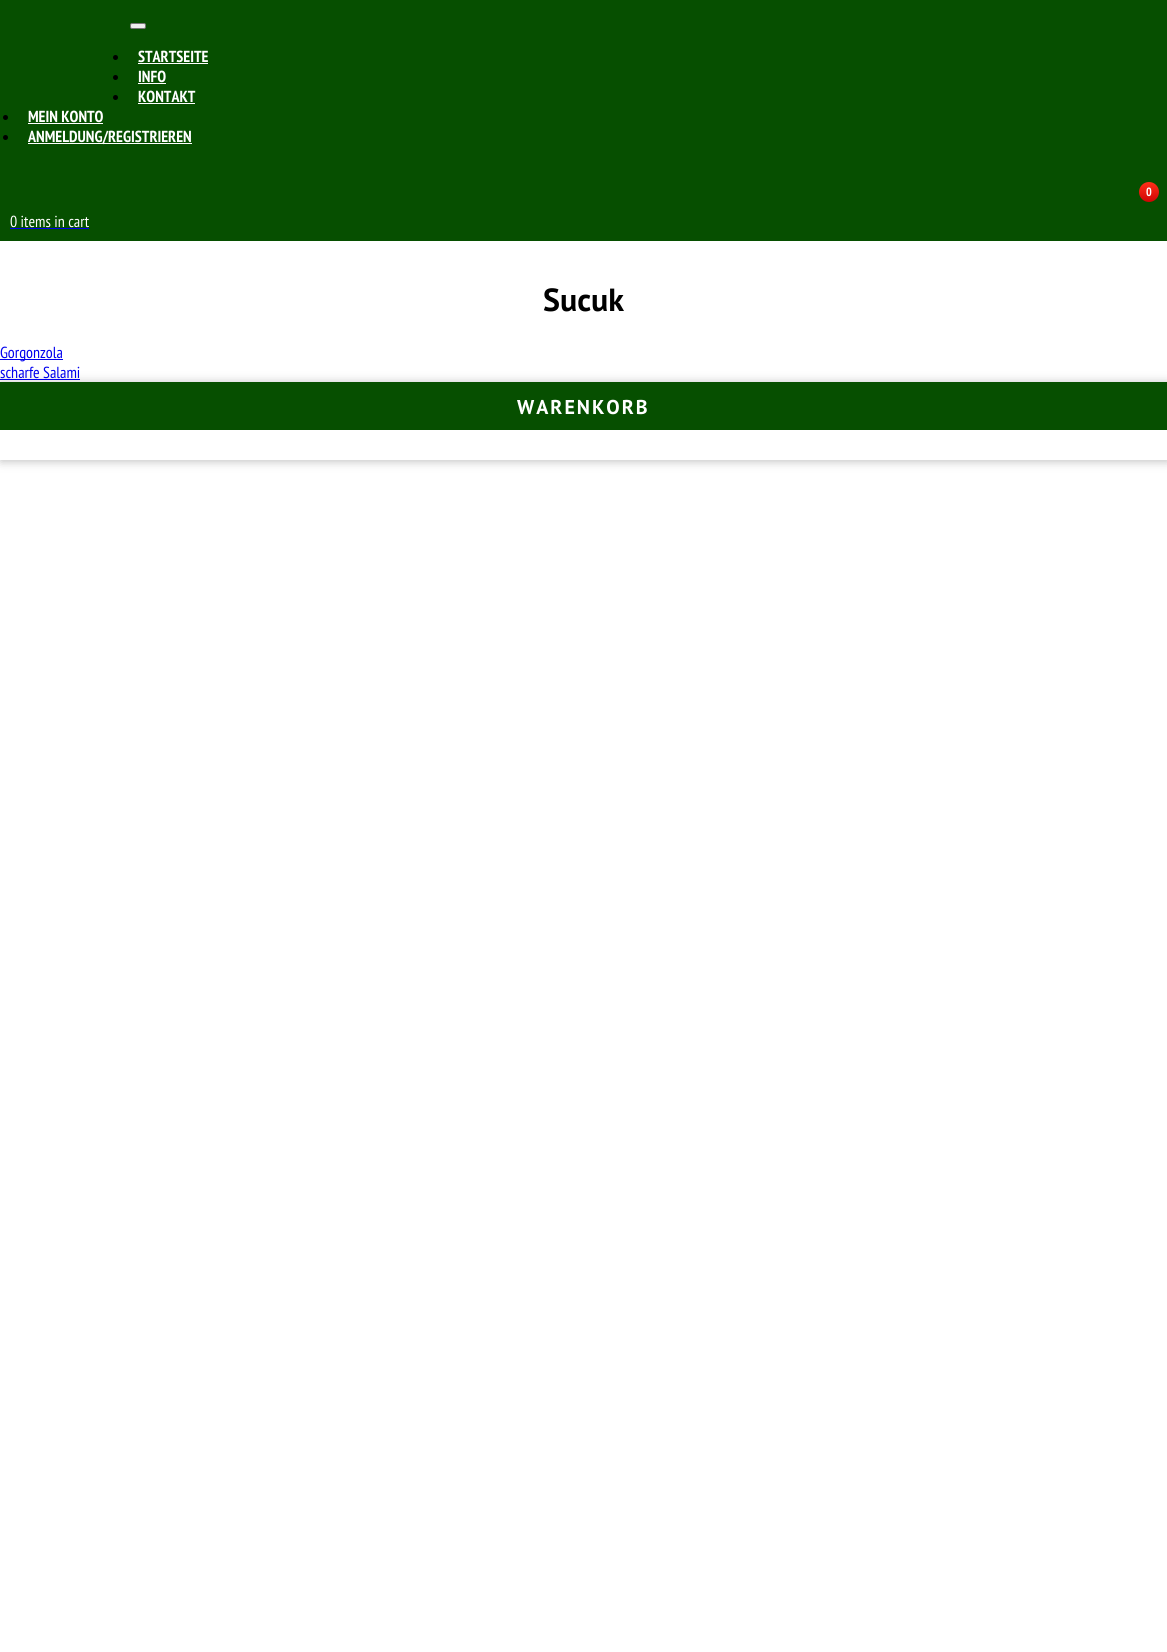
import math
import cairo


def write_spaced(ctx, x, y, s, letter, word):
	ctx.move_to(x, y)
	for ch in s:
		ctx.show_text(ch)
		ctx.rel_move_to(letter + word * (ch == ' '), 0)

def round_path(ctx, x, y, w, h, r):
	ctx.new_sub_path()
	for i, (u, v) in enumerate([(x + w - r, y + h - r), (x + r, y + h - r), (x + r, y + r), (x + w - r, y + r)]):
		ctx.arc(u, v, r, i * math.pi / 2, (i + 1) * math.pi / 2)
	ctx.close_path()

def blur_box(ctx, x, y, w, h, r, blur, alpha):
	ctx.push_group_with_content(cairo.CONTENT_ALPHA)
	ctx.set_operator(cairo.OPERATOR_SOURCE)
	for i in range(15, -16, -2):
		e = blur * i / 6
		if min(w, h) + 2 * e > 0:
			ctx.set_source_rgba(0, 0, 0, alpha * math.erfc((i - 1) / 8.5) / 2)
			round_path(ctx, x - e, y - e, w + 2 * e, h + 2 * e, max(0, min(r + e + blur * .6, min(w, h) / 2 + e)))
			ctx.fill()
	ctx.mask(ctx.pop_group())

def draw(ctx):
	ctx.set_source_rgb(1, 1, 1)
	ctx.paint()
	ctx.set_source_rgb(0.024, 0.31, 0)
	ctx.rectangle(0, 0, 1167, 241)
	ctx.fill()
	ctx.set_source_rgb(0.937, 0.937, 0.937)
	round_path(ctx, 130.5, 23.5, 15, 5, 1.5)
	ctx.fill_preserve()
	ctx.set_source_rgb(0.463, 0.463, 0.463)
	ctx.set_line_width(1)
	ctx.stroke()
	ctx.set_source_rgb(0, 0, 0)
	ctx.arc(115.5, 57.5, 2.5, 0, 2 * math.pi)
	ctx.fill()
	ctx.select_font_face('PT Sans Narrow', cairo.FONT_SLANT_NORMAL, cairo.FONT_WEIGHT_BOLD)
	ctx.set_font_size(16)
	ctx.set_source_rgb(1, 1, 1)
	ctx.move_to(138, 62)
	ctx.show_text('STARTSEITE')
	ctx.rectangle(138, 63, 70, 1)
	ctx.fill()
	ctx.set_source_rgb(0, 0, 0)
	ctx.arc(115.5, 77.5, 2.5, 0, 2 * math.pi)
	ctx.fill()
	ctx.set_source_rgb(1, 1, 1)
	ctx.move_to(138, 82)
	ctx.show_text('INFO')
	ctx.rectangle(138, 83, 28, 1)
	ctx.fill()
	ctx.set_source_rgb(0, 0, 0)
	ctx.arc(115.5, 97.5, 2.5, 0, 2 * math.pi)
	ctx.fill()
	ctx.set_source_rgb(1, 1, 1)
	ctx.move_to(138, 102)
	ctx.show_text('KONTAKT')
	ctx.rectangle(138, 103, 57, 1)
	ctx.fill()
	ctx.set_source_rgb(0, 0, 0)
	ctx.arc(5.5, 117.5, 2.5, 0, 2 * math.pi)
	ctx.fill()
	ctx.set_source_rgb(1, 1, 1)
	ctx.move_to(28, 122)
	ctx.show_text('MEIN KONTO')
	ctx.rectangle(28, 123, 75, 1)
	ctx.fill()
	ctx.set_source_rgb(0, 0, 0)
	ctx.arc(5.5, 137.5, 2.5, 0, 2 * math.pi)
	ctx.fill()
	ctx.set_source_rgb(1, 1, 1)
	ctx.rectangle(28, 143, 164, 1)
	ctx.fill()
	ctx.move_to(28, 142)
	ctx.show_text('ANMELDUNG/REGISTRIEREN')
	gradient = cairo.LinearGradient(1149, 182, 1149, 202)
	gradient.add_color_stop_rgba(0, 1, 0.188, 0.098, 1)
	gradient.add_color_stop_rgba(1, 0.812, 0.016, 0.016, 1)
	ctx.set_source(gradient)
	ctx.new_path()
	ctx.arc(1149, 192, 10, 0, 2 * math.pi)
	ctx.fill()
	ctx.set_font_size(12)
	ctx.set_source_rgb(1, 1, 1)
	ctx.move_to(1146, 196)
	ctx.show_text('0')
	ctx.select_font_face('PT Sans Narrow')
	ctx.set_font_size(16)
	ctx.move_to(10, 227)
	ctx.show_text('0 items in cart')
	ctx.set_source_rgb(0, 0, 0.933)
	ctx.rectangle(10, 228, 79, 1)
	ctx.fill()
	ctx.select_font_face('PT Sans', cairo.FONT_SLANT_NORMAL, cairo.FONT_WEIGHT_BOLD)
	ctx.set_font_size(32)
	ctx.set_source_rgb(0, 0, 0)
	ctx.move_to(543, 311)
	ctx.show_text('Sucuk')
	ctx.set_source_rgb(0, 0, 0.933)
	ctx.rectangle(0, 359, 63, 1)
	ctx.fill()
	ctx.select_font_face('PT Sans Narrow')
	ctx.set_font_size(16)
	ctx.move_to(0, 358)
	ctx.show_text('Gorgonzola')
	ctx.save()
	ctx.set_fill_rule(cairo.FILL_RULE_EVEN_ODD)
	ctx.new_path()
	ctx.move_to(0, 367)
	ctx.line_to(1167, 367)
	ctx.line_to(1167, 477)
	ctx.line_to(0, 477)
	ctx.close_path()
	ctx.move_to(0, 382)
	ctx.line_to(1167, 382)
	ctx.line_to(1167, 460)
	ctx.line_to(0, 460)
	ctx.close_path()
	ctx.clip()
	ctx.set_source_rgb(0.733, 0.733, 0.733)
	blur_box(ctx, 1, 383, 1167, 78, 0, 5, 1)
	ctx.restore()
	ctx.move_to(0, 378)
	ctx.show_text('scharfe Salami')
	ctx.rectangle(0, 379, 80, 1)
	ctx.fill()
	ctx.set_source_rgb(0.024, 0.31, 0)
	ctx.rectangle(0, 382, 1167, 48)
	ctx.fill()
	ctx.select_font_face('PT Sans', cairo.FONT_SLANT_NORMAL, cairo.FONT_WEIGHT_BOLD)
	ctx.set_font_size(20)
	ctx.set_source_rgb(1, 1, 1)
	write_spaced(ctx, 517, 414, 'WARENKORB', 2, 0)


surface = cairo.ImageSurface(cairo.FORMAT_RGB24, 1167, 1652)
ctx = cairo.Context(surface)
options = cairo.FontOptions()
options.set_hint_metrics(cairo.HINT_METRICS_OFF)
options.set_hint_style(cairo.HINT_STYLE_NONE)
ctx.set_font_options(options)
ctx.set_miter_limit(4)
draw(ctx)
surface.write_to_png('image.png')
